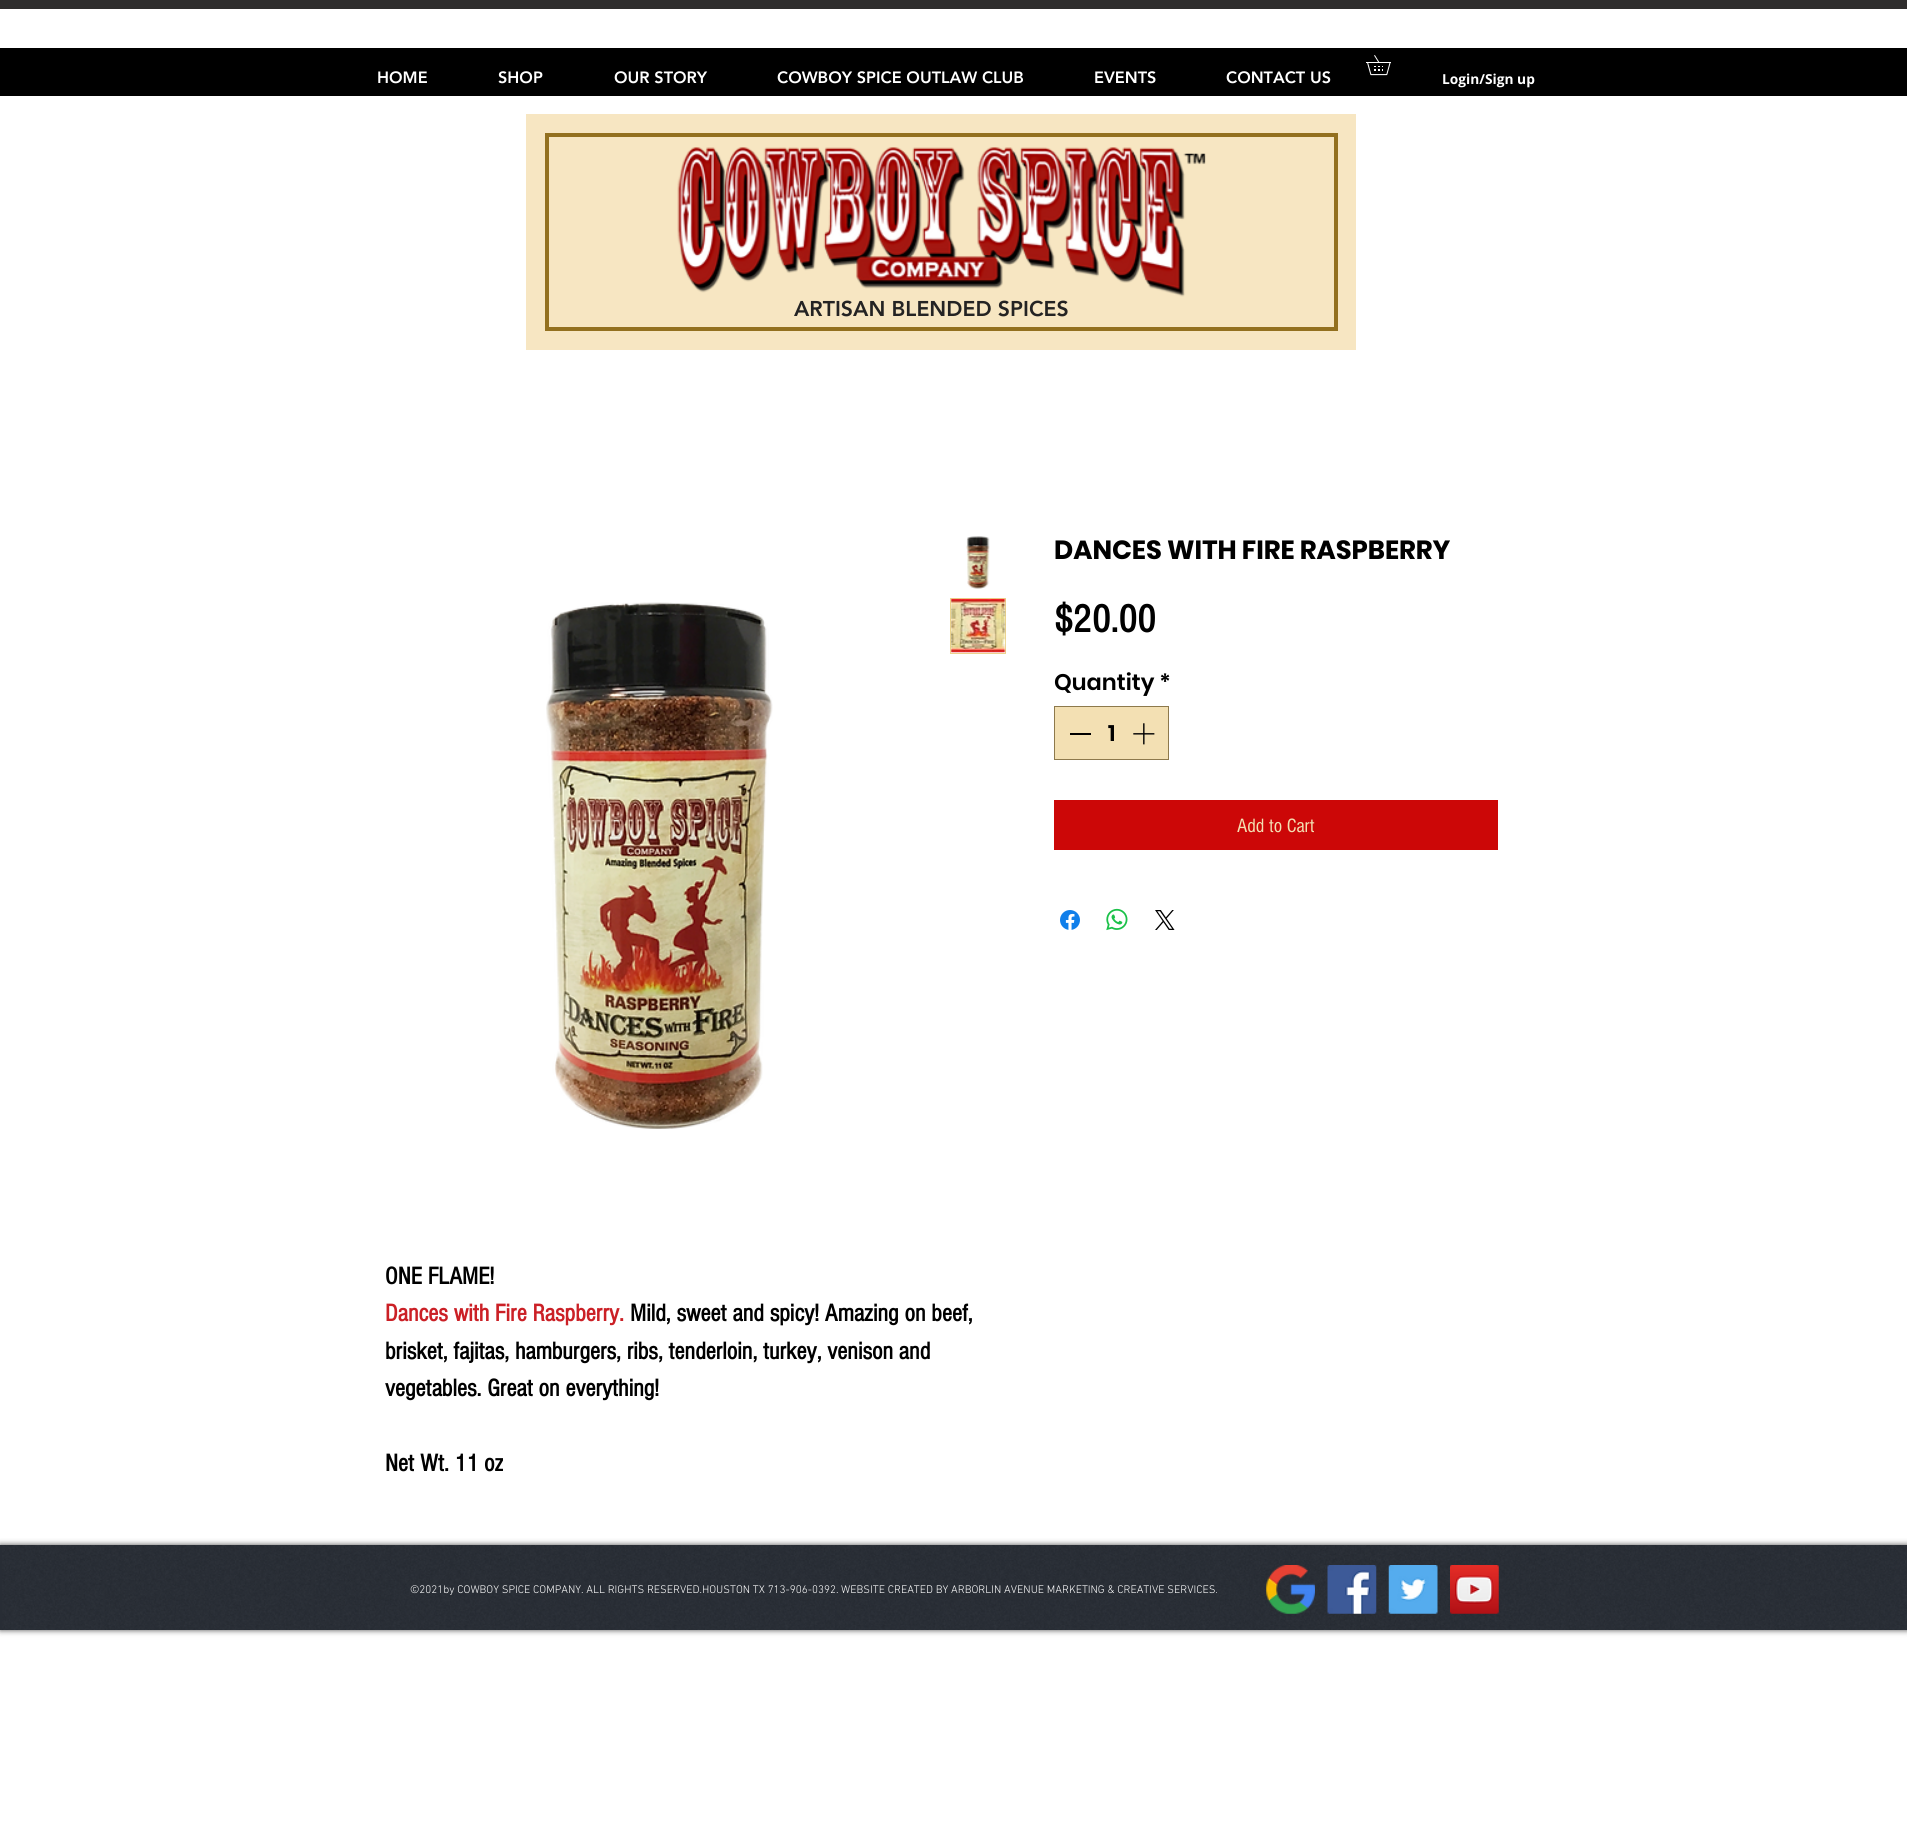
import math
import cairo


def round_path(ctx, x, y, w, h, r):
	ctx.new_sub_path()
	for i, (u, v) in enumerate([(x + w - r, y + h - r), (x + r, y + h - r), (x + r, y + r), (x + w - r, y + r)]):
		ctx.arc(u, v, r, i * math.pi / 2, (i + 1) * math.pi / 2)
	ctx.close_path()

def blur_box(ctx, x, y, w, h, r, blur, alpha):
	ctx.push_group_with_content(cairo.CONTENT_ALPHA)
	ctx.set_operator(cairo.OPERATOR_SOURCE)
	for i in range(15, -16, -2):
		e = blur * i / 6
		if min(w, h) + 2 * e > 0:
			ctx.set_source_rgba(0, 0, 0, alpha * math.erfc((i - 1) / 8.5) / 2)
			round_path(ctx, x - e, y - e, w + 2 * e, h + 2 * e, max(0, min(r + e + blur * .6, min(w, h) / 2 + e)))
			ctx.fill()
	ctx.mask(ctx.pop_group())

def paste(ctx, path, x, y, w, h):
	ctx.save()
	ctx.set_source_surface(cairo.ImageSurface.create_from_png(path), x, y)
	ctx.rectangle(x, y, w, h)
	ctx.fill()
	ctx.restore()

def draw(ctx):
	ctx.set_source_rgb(1, 1, 1)
	ctx.paint()
	ctx.set_source_rgb(0.184, 0.18, 0.18)
	ctx.rectangle(0, 0, 1907, 9)
	ctx.fill()
	ctx.set_source_rgb(0, 0, 0)
	ctx.rectangle(0, 48, 1907, 48)
	ctx.fill()
	ctx.set_source_rgb(0.965, 0.902, 0.761)
	ctx.rectangle(526, 114, 830, 236)
	ctx.fill()
	ctx.rectangle(547, 135, 789, 194)
	ctx.set_source_rgb(0.576, 0.439, 0.122)
	ctx.set_line_width(4)
	ctx.stroke()
	paste(ctx, 'media/1.png', 677, 147, 529, 150)
	paste(ctx, 'media/2.png', 1366, 55, 25, 21)
	ctx.select_font_face('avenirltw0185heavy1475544 Black')
	ctx.set_font_size(16.25)
	ctx.set_source_rgb(1, 1, 1)
	for x, y, s in [
		(377, 83, 'HOME'),
		(498, 83, 'SHOP'),
		(614, 83, 'OUR STORY'),
		(777, 83, 'COWBOY SPICE OUTLAW CLUB'),
		(1094, 83, 'EVENTS'),
		(1226, 83, 'CONTACT US'),
	]:
		ctx.move_to(x, y)
		ctx.show_text(s)
	ctx.select_font_face('Open Sans', cairo.FONT_SLANT_NORMAL, cairo.FONT_WEIGHT_BOLD)
	ctx.set_font_size(13.75)
	ctx.move_to(1442, 84)
	ctx.show_text('Login/Sign up')
	ctx.select_font_face('avenirltw0185heavy1475544 Black')
	ctx.set_font_size(21.25)
	ctx.set_source_rgb(0.141, 0.137, 0.137)
	ctx.move_to(794, 316)
	ctx.show_text('ARTISAN BLENDED SPICES')
	ctx.select_font_face('Poppins', cairo.FONT_SLANT_NORMAL, cairo.FONT_WEIGHT_BOLD)
	ctx.set_font_size(26.25)
	ctx.set_source_rgb(0, 0, 0)
	ctx.move_to(1054, 559)
	ctx.show_text('DANCES WITH FIRE RASPBERRY')
	ctx.select_font_face('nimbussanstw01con', cairo.FONT_SLANT_NORMAL, cairo.FONT_WEIGHT_BOLD)
	ctx.set_font_size(40)
	ctx.move_to(1054, 632)
	ctx.show_text('$20.00')
	ctx.select_font_face('Poppins SemiBold')
	ctx.set_font_size(22.5)
	ctx.move_to(1054, 690)
	ctx.show_text('Quantity *')
	ctx.set_source_rgb(0.953, 0.878, 0.702)
	ctx.rectangle(1054.5, 706.5, 114, 53)
	ctx.fill_preserve()
	ctx.set_source_rgb(0.553, 0.475, 0.298)
	ctx.set_line_width(1)
	ctx.stroke()
	ctx.set_source_rgb(0, 0, 0)
	ctx.rectangle(1070, 733, 21, 2)
	ctx.fill()
	ctx.move_to(1108, 741)
	ctx.show_text('1')
	paste(ctx, 'media/3.png', 1133, 723, 22, 22)
	ctx.set_source_rgb(0.8, 0.031, 0.031)
	ctx.rectangle(1054, 800, 444, 50)
	ctx.fill()
	ctx.select_font_face('nimbussanstw01con')
	ctx.set_font_size(20)
	ctx.set_source_rgb(0.953, 0.878, 0.702)
	ctx.move_to(1237, 832)
	ctx.show_text('Add to Cart')
	paste(ctx, 'media/4.png', 1060, 910, 20, 20)
	paste(ctx, 'media/5.png', 1106, 908, 22, 23)
	paste(ctx, 'media/6.png', 1155, 910, 20, 20)
	paste(ctx, 'media/7.png', 546, 602, 227, 527)
	paste(ctx, 'media/8.png', 966, 536, 24, 53)
	ctx.rectangle(950.5, 598.5, 55, 55)
	ctx.set_source_rgb(0.918, 0.827, 0.553)
	ctx.stroke()
	paste(ctx, 'media/9.png', 951, 598, 55, 55)
	ctx.select_font_face('nimbussanstw01con', cairo.FONT_SLANT_NORMAL, cairo.FONT_WEIGHT_BOLD)
	ctx.set_font_size(25)
	ctx.set_source_rgb(0, 0, 0)
	ctx.move_to(385, 1284)
	ctx.show_text('ONE FLAME!')
	ctx.set_source_rgb(0.796, 0.125, 0.149)
	ctx.move_to(385, 1321)
	ctx.show_text('Dances with Fire Raspberry.')
	ctx.set_source_rgb(0, 0, 0)
	for x, y, s in [
		(630, 1321, 'Mild, sweet and spicy! Amazing on beef,'),
		(385, 1359, 'brisket, fajitas, hamburgers, ribs, tenderloin, turkey, venison and'),
		(385, 1396, 'vegetables. Great on everything!'),
		(385, 1471, 'Net Wt. 11 oz'),
	]:
		ctx.move_to(x, y)
		ctx.show_text(s)
	ctx.set_source_rgb(0, 0, 0)
	blur_box(ctx, 0, 1545, 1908, 85, 0, 3, 0.7)
	ctx.set_source_rgb(0.157, 0.176, 0.208)
	ctx.rectangle(0, 1545, 1907, 85)
	ctx.fill()
	paste(ctx, 'media/10.png', 2, 1545, 1905, 85)
	ctx.select_font_face('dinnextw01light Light')
	ctx.set_font_size(11.25)
	ctx.set_source_rgb(1, 1, 1)
	ctx.move_to(410, 1593)
	ctx.show_text('©2021by COWBOY SPICE COMPANY. ALL RIGHTS RESERVED.HOUSTON TX 713-906-0392. WEBSITE CREATED BY ARBORLIN AVENUE MARKETING & CREATIVE SERVICES.')
	paste(ctx, 'media/11.png', 1266, 1565, 49, 49)
	paste(ctx, 'media/12.png', 1327, 1565, 50, 49)
	paste(ctx, 'media/13.png', 1388, 1565, 50, 49)
	paste(ctx, 'media/14.png', 1450, 1565, 49, 49)


surface = cairo.ImageSurface(cairo.FORMAT_RGB24, 1907, 1838)
ctx = cairo.Context(surface)
options = cairo.FontOptions()
options.set_hint_metrics(cairo.HINT_METRICS_OFF)
options.set_hint_style(cairo.HINT_STYLE_NONE)
ctx.set_font_options(options)
ctx.set_miter_limit(4)
draw(ctx)
surface.write_to_png('image.png')
